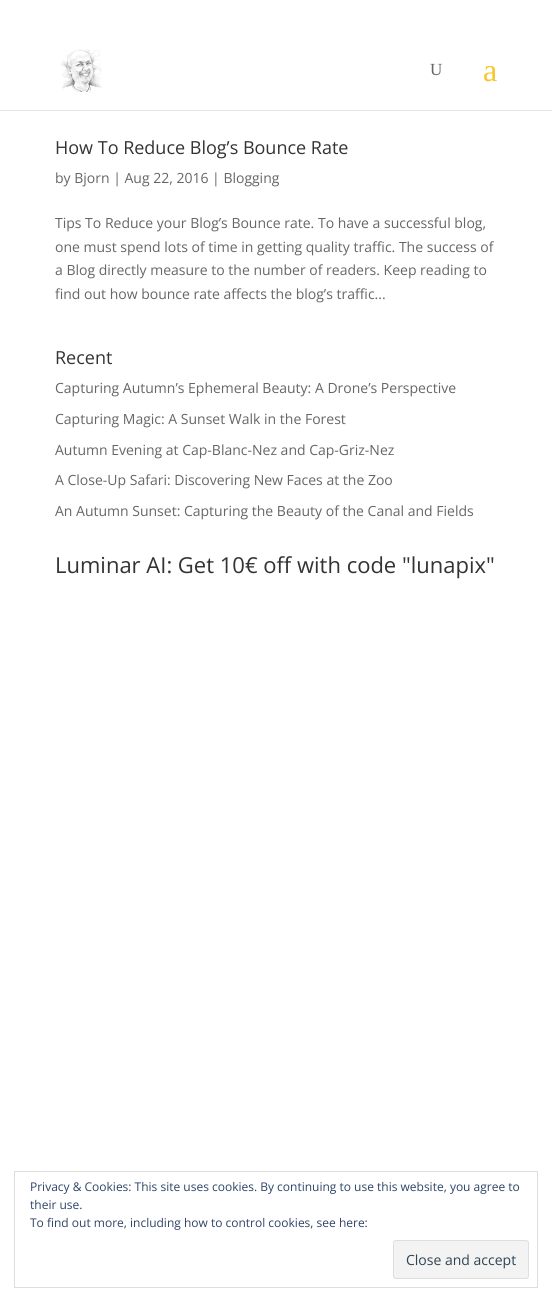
import math
import cairo


def round_path(ctx, x, y, w, h, r):
	ctx.new_sub_path()
	for i, (u, v) in enumerate([(x + w - r, y + h - r), (x + r, y + h - r), (x + r, y + r), (x + w - r, y + r)]):
		ctx.arc(u, v, r, i * math.pi / 2, (i + 1) * math.pi / 2)
	ctx.close_path()

def paste(ctx, path, x, y, w, h):
	ctx.save()
	ctx.set_source_surface(cairo.ImageSurface.create_from_png(path), x, y)
	ctx.rectangle(x, y, w, h)
	ctx.fill()
	ctx.restore()

def draw(ctx):
	ctx.set_source_rgb(1, 1, 1)
	ctx.paint()
	ctx.set_source_rgb(0.902, 0.902, 0.902)
	ctx.rectangle(0, 110, 552, 1)
	ctx.fill()
	paste(ctx, 'media/1.png', 60, 49, 42, 43)
	ctx.select_font_face('Liberation Serif')
	ctx.set_font_size(17)
	ctx.set_source_rgb(0.4, 0.4, 0.4)
	ctx.move_to(430, 75)
	ctx.show_text('U')
	ctx.set_font_size(32)
	ctx.set_source_rgb(0.969, 0.773, 0.18)
	ctx.move_to(483, 81)
	ctx.show_text('a')
	ctx.select_font_face('Open Sans')
	ctx.set_font_size(18)
	ctx.set_source_rgb(0.2, 0.2, 0.2)
	ctx.move_to(55, 154)
	ctx.show_text('How To Reduce Blog’s Bounce Rate')
	ctx.set_font_size(14)
	ctx.set_source_rgb(0.4, 0.4, 0.4)
	for x, y, s in [
		(55, 183, 'by Bjorn | Aug 22, 2016 | Blogging'),
		(55, 228, 'Tips To Reduce your Blog’s Bounce rate. To have a successful blog,'),
		(55, 252, 'one must spend lots of time in getting quality traffic. The success of'),
		(55, 275, 'a Blog directly measure to the number of readers. Keep reading to'),
		(55, 299, 'find out how bounce rate affects the blog’s traffic...'),
	]:
		ctx.move_to(x, y)
		ctx.show_text(s)
	ctx.set_font_size(18)
	ctx.set_source_rgb(0.2, 0.2, 0.2)
	ctx.move_to(55, 364)
	ctx.show_text('Recent')
	ctx.set_font_size(14)
	ctx.set_source_rgb(0.4, 0.4, 0.4)
	for x, y, s in [
		(55, 393, 'Capturing Autumn’s Ephemeral Beauty: A Drone’s Perspective'),
		(55, 424, 'Capturing Magic: A Sunset Walk in the Forest'),
		(55, 455, 'Autumn Evening at Cap-Blanc-Nez and Cap-Griz-Nez'),
		(55, 485, 'A Close-Up Safari: Discovering New Faces at the Zoo'),
		(55, 516, 'An Autumn Sunset: Capturing the Beauty of the Canal and Fields'),
	]:
		ctx.move_to(x, y)
		ctx.show_text(s)
	ctx.set_font_size(22)
	ctx.set_source_rgb(0.2, 0.2, 0.2)
	ctx.move_to(55, 573)
	ctx.show_text('Luminar AI: Get 10€ off with code "lunapix"')
	ctx.rectangle(14.5, 1171.5, 523, 116)
	ctx.set_source_rgb(0.871, 0.871, 0.871)
	ctx.set_line_width(1)
	ctx.stroke()
	ctx.set_font_size(12)
	ctx.set_source_rgb(0.18, 0.267, 0.404)
	for x, y, s in [
		(30, 1191, 'Privacy & Cookies: This site uses cookies. By continuing to use this website, you agree to'),
		(30, 1209, 'their use.'),
		(30, 1227, 'To find out more, including how to control cookies, see here:'),
	]:
		ctx.move_to(x, y)
		ctx.show_text(s)
	ctx.set_source_rgb(0.953, 0.953, 0.953)
	round_path(ctx, 393.5, 1240.5, 135, 38, 2.5)
	ctx.fill_preserve()
	ctx.set_source_rgb(0.871, 0.871, 0.871)
	ctx.stroke()
	ctx.set_font_size(14)
	ctx.set_source_rgb(0.18, 0.267, 0.325)
	ctx.move_to(406, 1265)
	ctx.show_text('Close and accept')


surface = cairo.ImageSurface(cairo.FORMAT_RGB24, 552, 1302)
ctx = cairo.Context(surface)
options = cairo.FontOptions()
options.set_hint_metrics(cairo.HINT_METRICS_OFF)
options.set_hint_style(cairo.HINT_STYLE_NONE)
ctx.set_font_options(options)
ctx.set_miter_limit(4)
draw(ctx)
surface.write_to_png('image.png')
